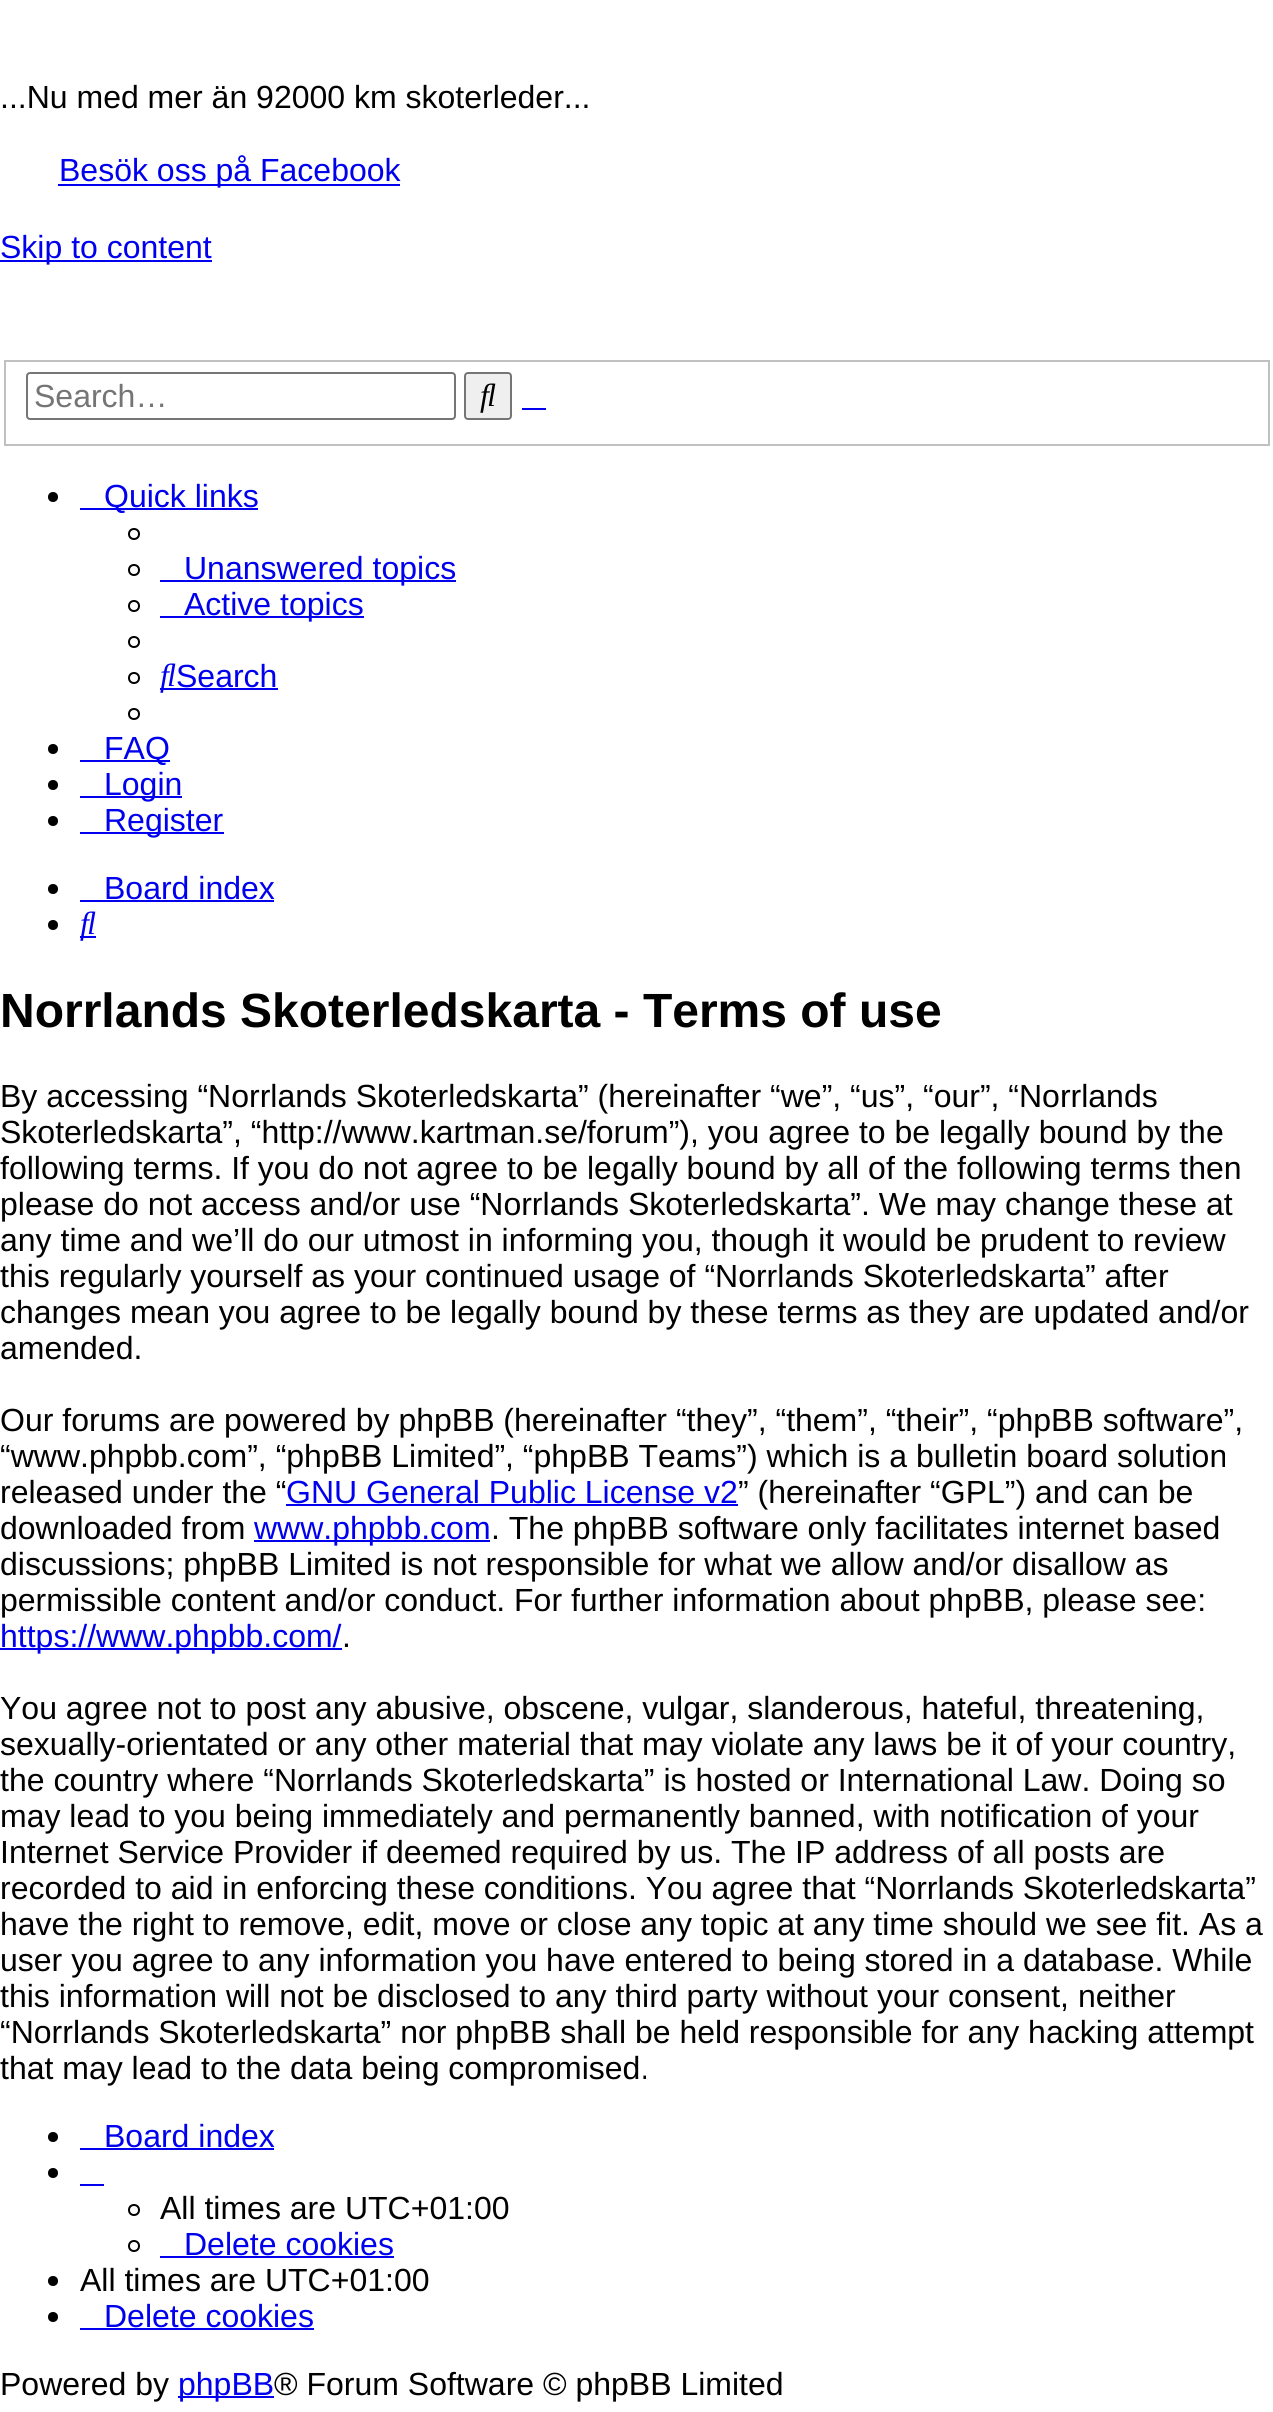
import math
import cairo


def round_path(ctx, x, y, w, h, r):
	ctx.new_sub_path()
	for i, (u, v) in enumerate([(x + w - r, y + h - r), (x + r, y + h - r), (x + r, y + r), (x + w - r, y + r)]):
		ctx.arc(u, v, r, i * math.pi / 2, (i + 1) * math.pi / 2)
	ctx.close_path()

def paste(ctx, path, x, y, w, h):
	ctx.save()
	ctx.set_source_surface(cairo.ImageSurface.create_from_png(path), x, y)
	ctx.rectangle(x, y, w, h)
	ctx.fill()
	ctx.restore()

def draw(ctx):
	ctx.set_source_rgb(1, 1, 1)
	ctx.paint()
	ctx.select_font_face('Liberation Sans')
	ctx.set_font_size(32)
	ctx.set_source_rgb(0, 0, 0)
	ctx.move_to(0, 108)
	ctx.show_text('...Nu med mer än 92000 km skoterleder...')
	ctx.set_source_rgb(0, 0, 0.933)
	ctx.rectangle(58, 184, 342, 2)
	ctx.fill()
	ctx.move_to(59, 181)
	ctx.show_text('Besök oss på Facebook')
	ctx.rectangle(0, 260, 212, 2)
	ctx.fill()
	ctx.move_to(0, 258)
	ctx.show_text('Skip to content')
	ctx.rectangle(5, 361, 1264, 84)
	ctx.set_source_rgb(0.753, 0.753, 0.753)
	ctx.stroke()
	round_path(ctx, 27, 373, 428, 46, 3)
	ctx.set_source_rgb(0.463, 0.463, 0.463)
	ctx.stroke()
	ctx.set_source_rgb(0.459, 0.459, 0.459)
	ctx.move_to(34, 407)
	ctx.show_text('Search…')
	ctx.set_source_rgb(0.937, 0.937, 0.937)
	round_path(ctx, 465, 373, 46, 46, 3)
	ctx.fill_preserve()
	ctx.set_source_rgb(0.463, 0.463, 0.463)
	ctx.stroke()
	paste(ctx, 'media/1.png', 480, 383, 16, 30)
	ctx.set_source_rgb(0, 0, 0.933)
	ctx.rectangle(522, 408, 24, 2)
	ctx.fill()
	ctx.set_source_rgb(0, 0, 0)
	ctx.arc(53, 497, 5, 0, 2 * math.pi)
	ctx.fill()
	ctx.set_source_rgb(0, 0, 0.933)
	ctx.rectangle(80, 508, 178, 2)
	ctx.fill()
	ctx.move_to(104, 507)
	ctx.show_text('Quick links')
	ctx.new_path()
	ctx.arc(134, 534, 5, 0, 2 * math.pi)
	ctx.set_source_rgb(0, 0, 0)
	ctx.stroke()
	ctx.arc(134, 570, 5, 0, 2 * math.pi)
	ctx.stroke()
	ctx.set_source_rgb(0, 0, 0.933)
	ctx.rectangle(160, 580, 296, 2)
	ctx.fill()
	ctx.move_to(184, 579)
	ctx.show_text('Unanswered topics')
	ctx.new_path()
	ctx.arc(134, 606, 5, 0, 2 * math.pi)
	ctx.set_source_rgb(0, 0, 0)
	ctx.stroke()
	ctx.set_source_rgb(0, 0, 0.933)
	ctx.rectangle(160, 616, 204, 2)
	ctx.fill()
	ctx.move_to(184, 615)
	ctx.show_text('Active topics')
	ctx.new_path()
	ctx.arc(134, 642, 5, 0, 2 * math.pi)
	ctx.set_source_rgb(0, 0, 0)
	ctx.stroke()
	ctx.arc(134, 678, 5, 0, 2 * math.pi)
	ctx.stroke()
	ctx.set_source_rgb(0, 0, 0.933)
	ctx.rectangle(160, 688, 118, 2)
	ctx.fill()
	paste(ctx, 'media/2.png', 160, 663, 16, 30)
	ctx.move_to(176, 687)
	ctx.show_text('Search')
	ctx.new_path()
	ctx.arc(134, 714, 5, 0, 2 * math.pi)
	ctx.set_source_rgb(0, 0, 0)
	ctx.stroke()
	ctx.arc(53, 749, 5, 0, 2 * math.pi)
	ctx.fill()
	ctx.set_source_rgb(0, 0, 0.933)
	ctx.rectangle(80, 760, 90, 2)
	ctx.fill()
	ctx.move_to(104, 759)
	ctx.show_text('FAQ')
	ctx.set_source_rgb(0, 0, 0)
	ctx.new_path()
	ctx.arc(53, 785, 5, 0, 2 * math.pi)
	ctx.fill()
	ctx.set_source_rgb(0, 0, 0.933)
	ctx.rectangle(80, 796, 102, 2)
	ctx.fill()
	ctx.move_to(104, 795)
	ctx.show_text('Login')
	ctx.set_source_rgb(0, 0, 0)
	ctx.new_path()
	ctx.arc(53, 821, 5, 0, 2 * math.pi)
	ctx.fill()
	ctx.set_source_rgb(0, 0, 0.933)
	ctx.rectangle(80, 832, 144, 2)
	ctx.fill()
	ctx.move_to(104, 831)
	ctx.show_text('Register')
	ctx.set_source_rgb(0, 0, 0)
	ctx.new_path()
	ctx.arc(53, 889, 5, 0, 2 * math.pi)
	ctx.fill()
	ctx.set_source_rgb(0, 0, 0.933)
	ctx.move_to(104, 899)
	ctx.show_text('Board index')
	ctx.rectangle(80, 900, 194, 2)
	ctx.fill()
	ctx.set_source_rgb(0, 0, 0)
	ctx.arc(53, 925, 5, 0, 2 * math.pi)
	ctx.fill()
	ctx.set_source_rgb(0, 0, 0.933)
	ctx.rectangle(80, 936, 16, 2)
	ctx.fill()
	paste(ctx, 'media/2.png', 80, 911, 16, 30)
	ctx.select_font_face('Liberation Sans', cairo.FONT_SLANT_NORMAL, cairo.FONT_WEIGHT_BOLD)
	ctx.set_font_size(48)
	ctx.set_source_rgb(0, 0, 0)
	ctx.move_to(0, 1027)
	ctx.show_text('Norrlands Skoterledskarta - Terms of use')
	ctx.select_font_face('Liberation Sans')
	ctx.set_font_size(32)
	for x, y, s in [
		(0, 1107, 'By accessing “Norrlands Skoterledskarta” (hereinafter “we”, “us”, “our”, “Norrlands'),
		(0, 1143, 'Skoterledskarta”, “http://www.kartman.se/forum”), you agree to be legally bound by the'),
		(0, 1179, 'following terms. If you do not agree to be legally bound by all of the following terms then'),
		(0, 1215, 'please do not access and/or use “Norrlands Skoterledskarta”. We may change these at'),
		(0, 1251, 'any time and we’ll do our utmost in informing you, though it would be prudent to review'),
		(0, 1287, 'this regularly yourself as your continued usage of “Norrlands Skoterledskarta” after'),
		(0, 1323, 'changes mean you agree to be legally bound by these terms as they are updated and/or'),
		(0, 1359, 'amended.'),
		(0, 1431, 'Our forums are powered by phpBB (hereinafter “they”, “them”, “their”, “phpBB software”,'),
		(0, 1467, '“www.phpbb.com”, “phpBB Limited”, “phpBB Teams”) which is a bulletin board solution'),
		(0, 1503, 'released under the “'),
	]:
		ctx.move_to(x, y)
		ctx.show_text(s)
	ctx.set_source_rgb(0, 0, 0.933)
	ctx.move_to(286, 1503)
	ctx.show_text('GNU General Public License v2')
	ctx.rectangle(286, 1504, 452, 2)
	ctx.fill()
	ctx.set_source_rgb(0, 0, 0)
	ctx.move_to(738, 1503)
	ctx.show_text('” (hereinafter “GPL”) and can be')
	ctx.move_to(0, 1539)
	ctx.show_text('downloaded from')
	ctx.set_source_rgb(0, 0, 0.933)
	ctx.rectangle(254, 1540, 236, 2)
	ctx.fill()
	ctx.move_to(254, 1539)
	ctx.show_text('www.phpbb.com')
	ctx.set_source_rgb(0, 0, 0)
	for x, y, s in [
		(491, 1539, '. The phpBB software only facilitates internet based'),
		(0, 1575, 'discussions; phpBB Limited is not responsible for what we allow and/or disallow as'),
		(0, 1611, 'permissible content and/or conduct. For further information about phpBB, please see:'),
	]:
		ctx.move_to(x, y)
		ctx.show_text(s)
	ctx.set_source_rgb(0, 0, 0.933)
	ctx.rectangle(0, 1648, 342, 2)
	ctx.fill()
	ctx.move_to(0, 1647)
	ctx.show_text('https://www.phpbb.com/')
	ctx.set_source_rgb(0, 0, 0)
	for x, y, s in [
		(342, 1647, '.'),
		(0, 1719, 'You agree not to post any abusive, obscene, vulgar, slanderous, hateful, threatening,'),
		(0, 1755, 'sexually-orientated or any other material that may violate any laws be it of your country,'),
		(0, 1791, 'the country where “Norrlands Skoterledskarta” is hosted or International Law. Doing so'),
		(0, 1827, 'may lead to you being immediately and permanently banned, with notification of your'),
		(0, 1863, 'Internet Service Provider if deemed required by us. The IP address of all posts are'),
		(0, 1899, 'recorded to aid in enforcing these conditions. You agree that “Norrlands Skoterledskarta”'),
		(0, 1935, 'have the right to remove, edit, move or close any topic at any time should we see fit. As a'),
		(0, 1971, 'user you agree to any information you have entered to being stored in a database. While'),
		(0, 2007, 'this information will not be disclosed to any third party without your consent, neither'),
		(0, 2043, '“Norrlands Skoterledskarta” nor phpBB shall be held responsible for any hacking attempt'),
		(0, 2079, 'that may lead to the data being compromised.'),
	]:
		ctx.move_to(x, y)
		ctx.show_text(s)
	ctx.new_path()
	ctx.arc(53, 2137, 5, 0, 2 * math.pi)
	ctx.fill()
	ctx.set_source_rgb(0, 0, 0.933)
	ctx.move_to(104, 2147)
	ctx.show_text('Board index')
	ctx.rectangle(80, 2148, 194, 2)
	ctx.fill()
	ctx.set_source_rgb(0, 0, 0)
	ctx.arc(53, 2173, 5, 0, 2 * math.pi)
	ctx.fill()
	ctx.set_source_rgb(0, 0, 0.933)
	ctx.rectangle(80, 2184, 24, 2)
	ctx.fill()
	ctx.arc(134, 2210, 5, 0, 2 * math.pi)
	ctx.set_source_rgb(0, 0, 0)
	ctx.stroke()
	ctx.move_to(160, 2219)
	ctx.show_text('All times are UTC+01:00')
	ctx.new_path()
	ctx.arc(134, 2246, 5, 0, 2 * math.pi)
	ctx.stroke()
	ctx.set_source_rgb(0, 0, 0.933)
	ctx.move_to(184, 2255)
	ctx.show_text('Delete cookies')
	ctx.rectangle(160, 2256, 234, 2)
	ctx.fill()
	ctx.set_source_rgb(0, 0, 0)
	ctx.arc(53, 2281, 5, 0, 2 * math.pi)
	ctx.fill()
	ctx.move_to(80, 2291)
	ctx.show_text('All times are UTC+01:00')
	ctx.new_path()
	ctx.arc(53, 2317, 5, 0, 2 * math.pi)
	ctx.fill()
	ctx.set_source_rgb(0, 0, 0.933)
	ctx.move_to(104, 2327)
	ctx.show_text('Delete cookies')
	ctx.rectangle(80, 2328, 234, 2)
	ctx.fill()
	ctx.set_source_rgb(0, 0, 0)
	ctx.move_to(0, 2395)
	ctx.show_text('Powered by')
	ctx.set_source_rgb(0, 0, 0.933)
	ctx.rectangle(178, 2396, 96, 2)
	ctx.fill()
	ctx.move_to(178, 2395)
	ctx.show_text('phpBB')
	ctx.set_source_rgb(0, 0, 0)
	ctx.move_to(274, 2395)
	ctx.show_text('® Forum Software © phpBB Limited')


surface = cairo.ImageSurface(cairo.FORMAT_RGB24, 1273, 2412)
ctx = cairo.Context(surface)
options = cairo.FontOptions()
options.set_hint_metrics(cairo.HINT_METRICS_OFF)
options.set_hint_style(cairo.HINT_STYLE_NONE)
ctx.set_font_options(options)
ctx.set_miter_limit(4)
draw(ctx)
surface.write_to_png('image.png')
